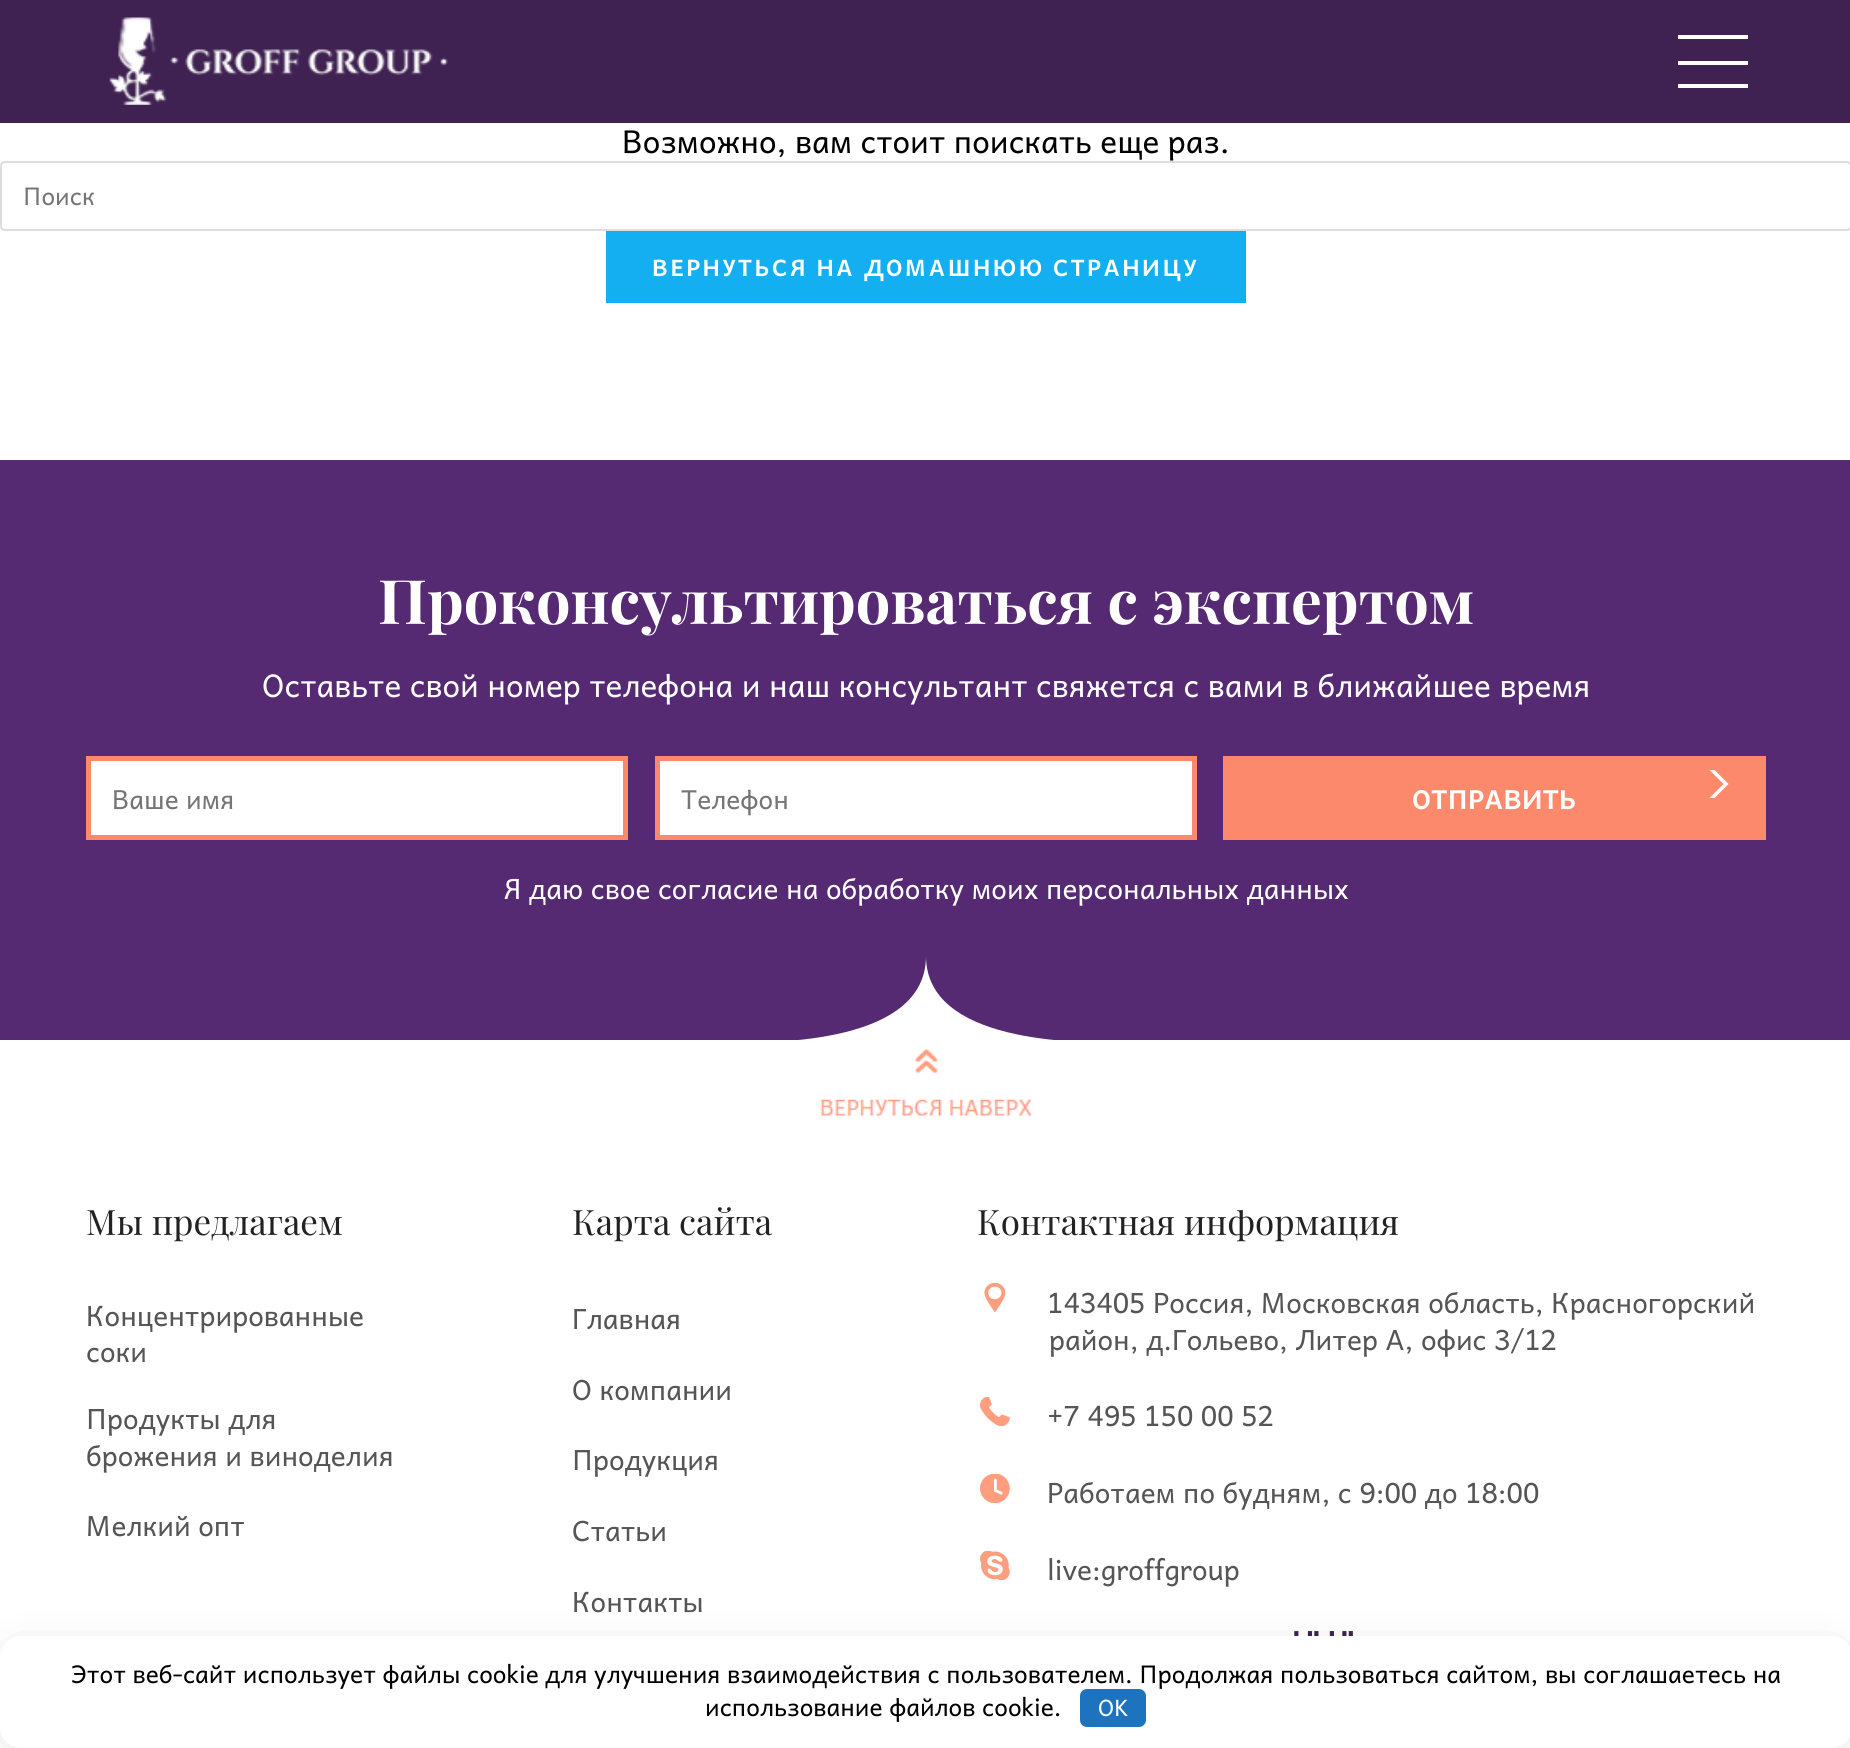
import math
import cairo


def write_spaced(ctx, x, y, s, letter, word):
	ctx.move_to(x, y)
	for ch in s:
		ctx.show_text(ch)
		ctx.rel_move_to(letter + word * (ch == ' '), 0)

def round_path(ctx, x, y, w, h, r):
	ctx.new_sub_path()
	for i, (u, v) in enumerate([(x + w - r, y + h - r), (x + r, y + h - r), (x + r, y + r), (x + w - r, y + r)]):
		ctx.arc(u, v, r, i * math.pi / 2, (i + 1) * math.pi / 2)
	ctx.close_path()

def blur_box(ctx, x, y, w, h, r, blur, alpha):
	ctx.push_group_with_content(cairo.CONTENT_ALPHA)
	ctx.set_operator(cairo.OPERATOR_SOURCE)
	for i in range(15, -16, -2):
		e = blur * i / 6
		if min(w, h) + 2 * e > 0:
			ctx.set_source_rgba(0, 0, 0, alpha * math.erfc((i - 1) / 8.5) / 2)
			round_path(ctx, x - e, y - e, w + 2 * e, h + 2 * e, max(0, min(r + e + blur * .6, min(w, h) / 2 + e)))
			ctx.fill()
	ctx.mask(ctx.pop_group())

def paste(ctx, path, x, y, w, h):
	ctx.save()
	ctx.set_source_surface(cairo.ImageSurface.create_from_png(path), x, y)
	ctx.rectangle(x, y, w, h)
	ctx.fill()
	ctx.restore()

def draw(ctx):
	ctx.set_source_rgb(1, 1, 1)
	ctx.paint()
	ctx.set_source_rgb(0.247, 0.133, 0.322)
	ctx.rectangle(0, 0, 1850, 123)
	ctx.fill()
	paste(ctx, 'media/1.png', 109, 17, 339, 88)
	ctx.set_source_rgb(1, 1, 1)
	ctx.rectangle(1678, 35, 70, 4)
	ctx.rectangle(1678, 61, 70, 4)
	ctx.rectangle(1678, 84, 70, 4)
	ctx.fill()
	ctx.select_font_face('Andika')
	ctx.set_font_size(31.5)
	ctx.set_source_rgb(0, 0, 0)
	ctx.move_to(622, 153)
	ctx.show_text('Возможно, вам стоит поискать еще раз.')
	round_path(ctx, 1, 162, 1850, 68, 4)
	ctx.set_source_rgb(0.867, 0.867, 0.867)
	ctx.stroke()
	ctx.set_font_size(24.5)
	ctx.set_source_rgb(0.459, 0.459, 0.459)
	ctx.move_to(23, 205)
	ctx.show_text('Поиск')
	ctx.set_source_rgb(0.075, 0.686, 0.941)
	ctx.rectangle(606, 231, 640, 72)
	ctx.fill()
	ctx.select_font_face('Andika', cairo.FONT_SLANT_NORMAL, cairo.FONT_WEIGHT_BOLD)
	ctx.set_font_size(22.75)
	ctx.set_source_rgb(1, 1, 1)
	write_spaced(ctx, 652, 276, 'ВЕРНУТЬСЯ НА ДОМАШНЮЮ СТРАНИЦУ', 2.25, 0)
	ctx.set_source_rgb(0.333, 0.165, 0.451)
	ctx.rectangle(0, 460, 1850, 580)
	ctx.fill()
	ctx.select_font_face('Playfair Display', cairo.FONT_SLANT_NORMAL, cairo.FONT_WEIGHT_BOLD)
	ctx.set_font_size(61.25)
	ctx.set_source_rgb(1, 1, 1)
	ctx.move_to(378, 624)
	ctx.show_text('Проконсультироваться с экспертом')
	ctx.select_font_face('Andika')
	ctx.set_font_size(31.5)
	ctx.move_to(262, 697)
	ctx.show_text('Оставьте свой номер телефона и наш консультант свяжется с вами в ближайшее время')
	ctx.rectangle(88.5, 758.5, 537, 79)
	ctx.fill_preserve()
	ctx.set_source_rgb(0.992, 0.537, 0.424)
	ctx.set_line_width(5)
	ctx.stroke()
	ctx.set_font_size(26.25)
	ctx.set_source_rgb(0.459, 0.459, 0.459)
	ctx.move_to(112, 809)
	ctx.show_text('Ваше имя')
	ctx.set_source_rgb(1, 1, 1)
	ctx.rectangle(657.5, 758.5, 537, 79)
	ctx.fill_preserve()
	ctx.set_source_rgb(0.992, 0.537, 0.424)
	ctx.stroke()
	ctx.set_source_rgb(0.459, 0.459, 0.459)
	ctx.move_to(681, 809)
	ctx.show_text('Телефон')
	ctx.set_source_rgb(0.992, 0.537, 0.424)
	ctx.rectangle(1223, 756, 543, 84)
	ctx.fill()
	ctx.select_font_face('Andika', cairo.FONT_SLANT_NORMAL, cairo.FONT_WEIGHT_BOLD)
	ctx.set_source_rgb(1, 1, 1)
	ctx.move_to(1412, 809)
	ctx.show_text('ОТПРАВИТЬ')
	ctx.save()
	ctx.rectangle(1705, 770, 28, 28)
	ctx.clip()
	ctx.new_path()
	ctx.move_to(1728.5, 784)
	ctx.line_to(1711, 766.5)
	ctx.line_to(1708.5, 769)
	ctx.line_to(1723.5, 784)
	ctx.line_to(1708.5, 799)
	ctx.line_to(1711, 801.5)
	ctx.close_path()
	ctx.fill()
	ctx.restore()
	ctx.select_font_face('Andika')
	ctx.set_font_size(28)
	ctx.move_to(503, 899)
	ctx.show_text('Я даю свое согласие на обработку моих персональных данных')
	ctx.new_path()
	ctx.move_to(1127, 1043)
	ctx.curve_to(1075, 1043, 926, 1043, 926, 956)
	ctx.curve_to(926, 1043, 778, 1043, 725, 1043)
	ctx.curve_to(672, 1043, 1180, 1043, 1127, 1043)
	ctx.close_path()
	ctx.fill()
	paste(ctx, 'media/2.png', 820, 1049, 213, 67)
	ctx.select_font_face('Playfair Display')
	ctx.set_font_size(35)
	ctx.set_source_rgb(0.133, 0.133, 0.133)
	ctx.move_to(86, 1235)
	ctx.show_text('Мы предлагаем')
	ctx.select_font_face('Andika')
	ctx.set_font_size(28)
	ctx.set_source_rgb(0.333, 0.333, 0.333)
	for x, y, s in [
		(86, 1326, 'Концентрированные'),
		(86, 1362, 'соки'),
		(86, 1429, 'Продукты для'),
		(86, 1466, 'брожения и виноделия'),
		(86, 1536, 'Мелкий опт'),
	]:
		ctx.move_to(x, y)
		ctx.show_text(s)
	ctx.select_font_face('Playfair Display')
	ctx.set_font_size(35)
	ctx.set_source_rgb(0.133, 0.133, 0.133)
	ctx.move_to(572, 1235)
	ctx.show_text('Карта сайта')
	ctx.select_font_face('Andika')
	ctx.set_font_size(28)
	ctx.set_source_rgb(0.333, 0.333, 0.333)
	for x, y, s in [
		(572, 1329, 'Главная'),
		(572, 1400, 'О компании'),
		(572, 1470, 'Продукция'),
		(572, 1541, 'Статьи'),
		(572, 1612, 'Контакты'),
	]:
		ctx.move_to(x, y)
		ctx.show_text(s)
	ctx.select_font_face('Playfair Display')
	ctx.set_font_size(35)
	ctx.set_source_rgb(0.133, 0.133, 0.133)
	ctx.move_to(977, 1235)
	ctx.show_text('Контактная информация')
	paste(ctx, 'media/3.png', 984, 1283, 22, 30)
	ctx.select_font_face('Andika')
	ctx.set_font_size(28)
	ctx.set_source_rgb(0.333, 0.333, 0.333)
	ctx.move_to(1047, 1313)
	ctx.show_text('143405 Россия, Московская область, Красногорский')
	ctx.move_to(1049, 1350)
	ctx.show_text('район, д.Гольево, Литер А, офис 3/12')
	paste(ctx, 'media/4.png', 980, 1397, 30, 29)
	ctx.move_to(1047, 1426)
	ctx.show_text('+7 495 150 00 52')
	paste(ctx, 'media/5.png', 980, 1474, 30, 29)
	ctx.move_to(1047, 1503)
	ctx.show_text('Работаем по будням, с 9:00 до 18:00')
	paste(ctx, 'media/6.png', 980, 1551, 30, 29)
	ctx.move_to(1047, 1580)
	ctx.show_text('live:groffgroup')
	paste(ctx, 'media/7.png', 1294, 1631, 59, 5)
	ctx.set_source_rgb(0.161, 0.173, 0.22)
	blur_box(ctx, 9, 1650, 1834, 95, 12, 17.5, 0.2)
	ctx.set_source_rgb(1, 1, 1)
	round_path(ctx, 0, 1636, 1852, 112, 21)
	ctx.fill()
	ctx.set_font_size(24.5)
	ctx.set_source_rgb(0, 0, 0)
	ctx.move_to(71, 1683)
	ctx.show_text('Этот веб-сайт использует файлы cookie для улучшения взаимодействия с пользователем. Продолжая пользоваться сайтом, вы соглашаетесь на')
	ctx.move_to(705, 1716)
	ctx.show_text('использование файлов cookie.')
	ctx.set_source_rgb(0.118, 0.451, 0.745)
	round_path(ctx, 1080, 1689, 66, 38, 7)
	ctx.fill()
	ctx.set_font_size(22.75)
	ctx.set_source_rgb(1, 1, 1)
	ctx.move_to(1098, 1716)
	ctx.show_text('OK')


surface = cairo.ImageSurface(cairo.FORMAT_RGB24, 1850, 1748)
ctx = cairo.Context(surface)
options = cairo.FontOptions()
options.set_hint_metrics(cairo.HINT_METRICS_OFF)
options.set_hint_style(cairo.HINT_STYLE_NONE)
ctx.set_font_options(options)
ctx.set_miter_limit(4)
draw(ctx)
surface.write_to_png('image.png')
